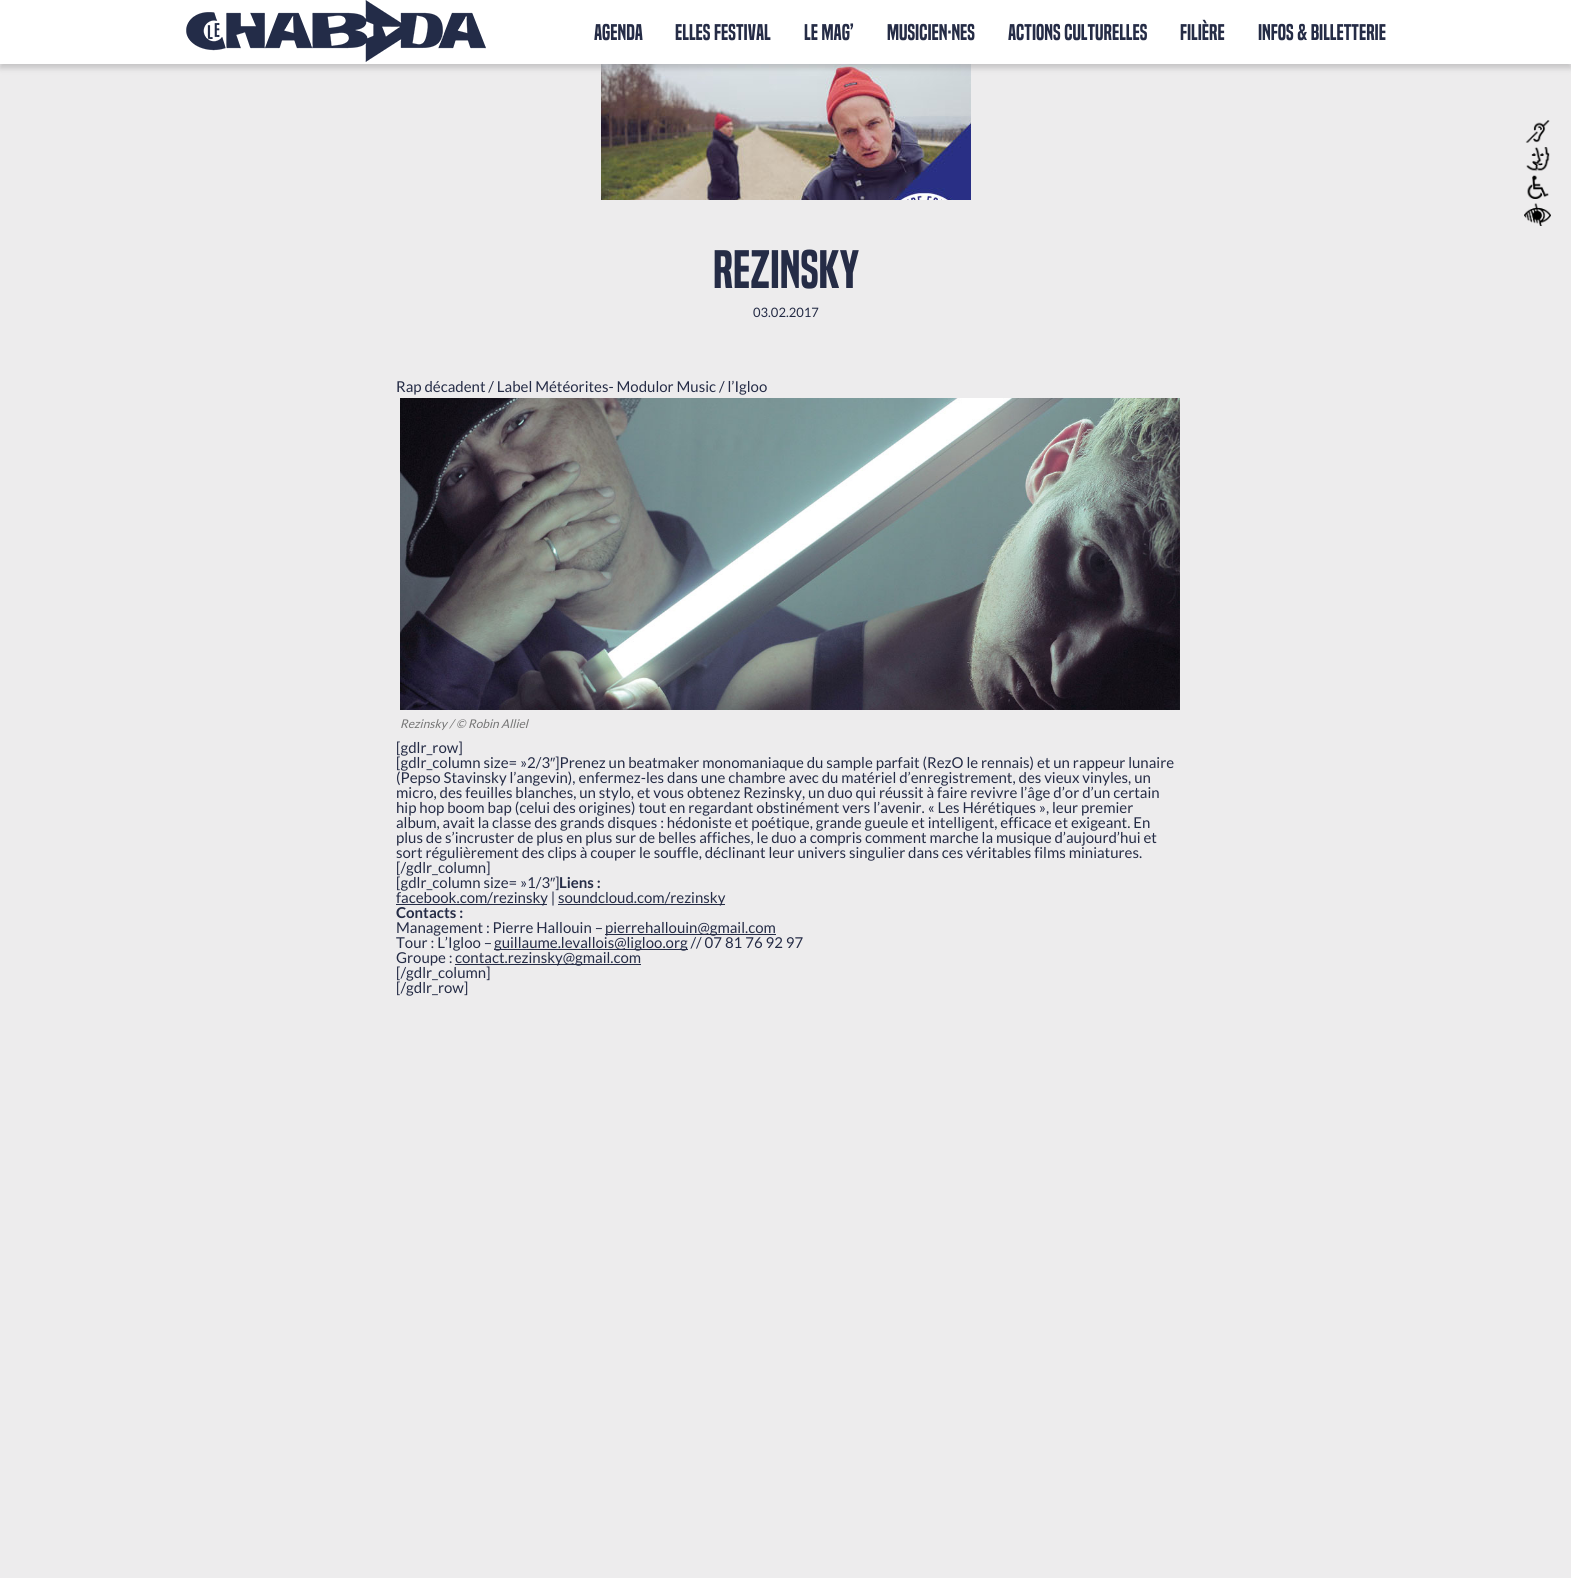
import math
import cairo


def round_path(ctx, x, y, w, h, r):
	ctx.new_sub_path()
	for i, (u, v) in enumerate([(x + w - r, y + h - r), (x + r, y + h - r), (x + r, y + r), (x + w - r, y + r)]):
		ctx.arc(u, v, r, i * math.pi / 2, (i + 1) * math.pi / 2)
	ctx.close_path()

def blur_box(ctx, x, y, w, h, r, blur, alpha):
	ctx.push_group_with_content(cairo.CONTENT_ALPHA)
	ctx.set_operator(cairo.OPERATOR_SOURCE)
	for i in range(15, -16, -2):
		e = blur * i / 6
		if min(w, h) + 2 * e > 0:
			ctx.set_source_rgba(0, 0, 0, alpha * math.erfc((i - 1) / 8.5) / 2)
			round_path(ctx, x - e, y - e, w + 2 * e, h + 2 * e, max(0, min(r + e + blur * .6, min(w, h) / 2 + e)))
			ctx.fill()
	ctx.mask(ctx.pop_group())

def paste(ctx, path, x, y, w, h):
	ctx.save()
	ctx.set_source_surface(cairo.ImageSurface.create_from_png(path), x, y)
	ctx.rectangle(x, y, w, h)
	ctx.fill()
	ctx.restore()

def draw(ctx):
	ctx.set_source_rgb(0.929, 0.925, 0.929)
	ctx.paint()
	paste(ctx, 'media/3.png', 601, 64, 370, 136)
	ctx.set_source_rgb(0.392, 0.392, 0.392)
	blur_box(ctx, 0, 4, 1571, 64, 0, 3, 0.3)
	ctx.set_source_rgb(1, 1, 1)
	ctx.rectangle(0, 0, 1571, 64)
	ctx.fill()
	paste(ctx, 'media/1.png', 186, 0, 300, 62)
	ctx.select_font_face('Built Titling')
	ctx.set_font_size(21)
	ctx.set_source_rgb(0.145, 0.173, 0.275)
	for x, y, s in [
		(594, 40, 'AGENDA'),
		(675, 40, 'ELLES FESTIVAL'),
		(804, 40, 'LE MAG’'),
		(887, 40, 'MUSICIEN·NES'),
		(1008, 40, 'ACTIONS CULTURELLES'),
		(1180, 40, 'FILIÈRE'),
		(1258, 40, 'INFOS & BILLETTERIE'),
	]:
		ctx.move_to(x, y)
		ctx.show_text(s)
	paste(ctx, 'media/2.png', 1524, 120, 27, 106)
	ctx.set_font_size(50)
	ctx.move_to(713, 288)
	ctx.show_text('REZINSKY')
	ctx.select_font_face('Lato')
	ctx.set_font_size(13)
	ctx.move_to(753, 317)
	ctx.show_text('03.02.2017')
	ctx.set_font_size(15)
	ctx.move_to(396, 392)
	ctx.show_text('Rap décadent / Label Météorites- Modulor Music / l’Igloo')
	paste(ctx, 'media/4.png', 400, 398, 780, 312)
	ctx.select_font_face('Lato', cairo.FONT_SLANT_ITALIC)
	ctx.set_font_size(12)
	ctx.set_source_rgb(0.459, 0.459, 0.459)
	ctx.move_to(400, 728)
	ctx.show_text('Rezinsky / © Robin Alliel')
	ctx.select_font_face('Lato')
	ctx.set_font_size(15)
	ctx.set_source_rgb(0.145, 0.173, 0.275)
	ctx.move_to(396, 753)
	ctx.show_text('[gdlr_row]')
	ctx.move_to(396, 768)
	ctx.show_text('[gdlr_column size= »2/3')
	ctx.select_font_face('Liberation Sans')
	ctx.move_to(550, 768)
	ctx.show_text('″')
	ctx.select_font_face('Lato')
	for x, y, s in [
		(555, 768, ']Prenez un beatmaker monomaniaque du sample parfait (RezO le rennais) et un rappeur lunaire'),
		(396, 783, '(Pepso Stavinsky l’angevin), enfermez-les dans une chambre avec du matériel d’enregistrement, des vieux vinyles, un'),
		(396, 798, 'micro, des feuilles blanches, un stylo, et vous obtenez Rezinsky, un duo qui réussit à faire revivre l’âge d’or d’un certain'),
		(396, 813, 'hip hop boom bap (celui des origines) tout en regardant obstinément vers l’avenir. « Les Hérétiques », leur premier'),
		(396, 828, 'album, avait la classe des grands disques : hédoniste et poétique, grande gueule et intelligent, efficace et exigeant. En'),
		(396, 843, 'plus de s’incruster de plus en plus sur de belles affiches, le duo a compris comment marche la musique d’aujourd’hui et'),
		(396, 858, 'sort régulièrement des clips à couper le souffle, déclinant leur univers singulier dans ces véritables films miniatures.'),
		(396, 873, '[/gdlr_column]'),
		(396, 888, '[gdlr_column size= »1/3'),
	]:
		ctx.move_to(x, y)
		ctx.show_text(s)
	ctx.select_font_face('Liberation Sans')
	ctx.move_to(550, 888)
	ctx.show_text('″')
	ctx.select_font_face('Lato')
	ctx.move_to(555, 888)
	ctx.show_text(']')
	ctx.select_font_face('Lato', cairo.FONT_SLANT_NORMAL, cairo.FONT_WEIGHT_BOLD)
	ctx.move_to(559, 888)
	ctx.show_text('Liens :')
	ctx.rectangle(396, 904, 151, 1)
	ctx.fill()
	ctx.select_font_face('Lato')
	ctx.move_to(396, 903)
	ctx.show_text('facebook.com/rezinsky |')
	ctx.rectangle(558, 904, 167, 1)
	ctx.fill()
	ctx.move_to(558, 903)
	ctx.show_text('soundcloud.com/rezinsky')
	ctx.select_font_face('Lato', cairo.FONT_SLANT_NORMAL, cairo.FONT_WEIGHT_BOLD)
	ctx.move_to(396, 918)
	ctx.show_text('Contacts :')
	ctx.select_font_face('Lato')
	ctx.move_to(396, 933)
	ctx.show_text('Management : Pierre Hallouin –')
	ctx.rectangle(605, 934, 171, 1)
	ctx.fill()
	ctx.move_to(605, 933)
	ctx.show_text('pierrehallouin@gmail.com')
	ctx.move_to(396, 948)
	ctx.show_text('Tour : L’Igloo –')
	ctx.rectangle(494, 949, 194, 1)
	ctx.fill()
	ctx.move_to(494, 948)
	ctx.show_text('guillaume.levallois@ligloo.org // 07 81 76 92 97')
	ctx.move_to(396, 963)
	ctx.show_text('Groupe :')
	ctx.rectangle(455, 964, 186, 1)
	ctx.fill()
	for x, y, s in [
		(455, 963, 'contact.rezinsky@gmail.com'),
		(396, 978, '[/gdlr_column]'),
		(396, 993, '[/gdlr_row]'),
	]:
		ctx.move_to(x, y)
		ctx.show_text(s)


surface = cairo.ImageSurface(cairo.FORMAT_RGB24, 1571, 1578)
ctx = cairo.Context(surface)
options = cairo.FontOptions()
options.set_hint_metrics(cairo.HINT_METRICS_OFF)
options.set_hint_style(cairo.HINT_STYLE_NONE)
ctx.set_font_options(options)
ctx.set_miter_limit(4)
draw(ctx)
surface.write_to_png('image.png')
